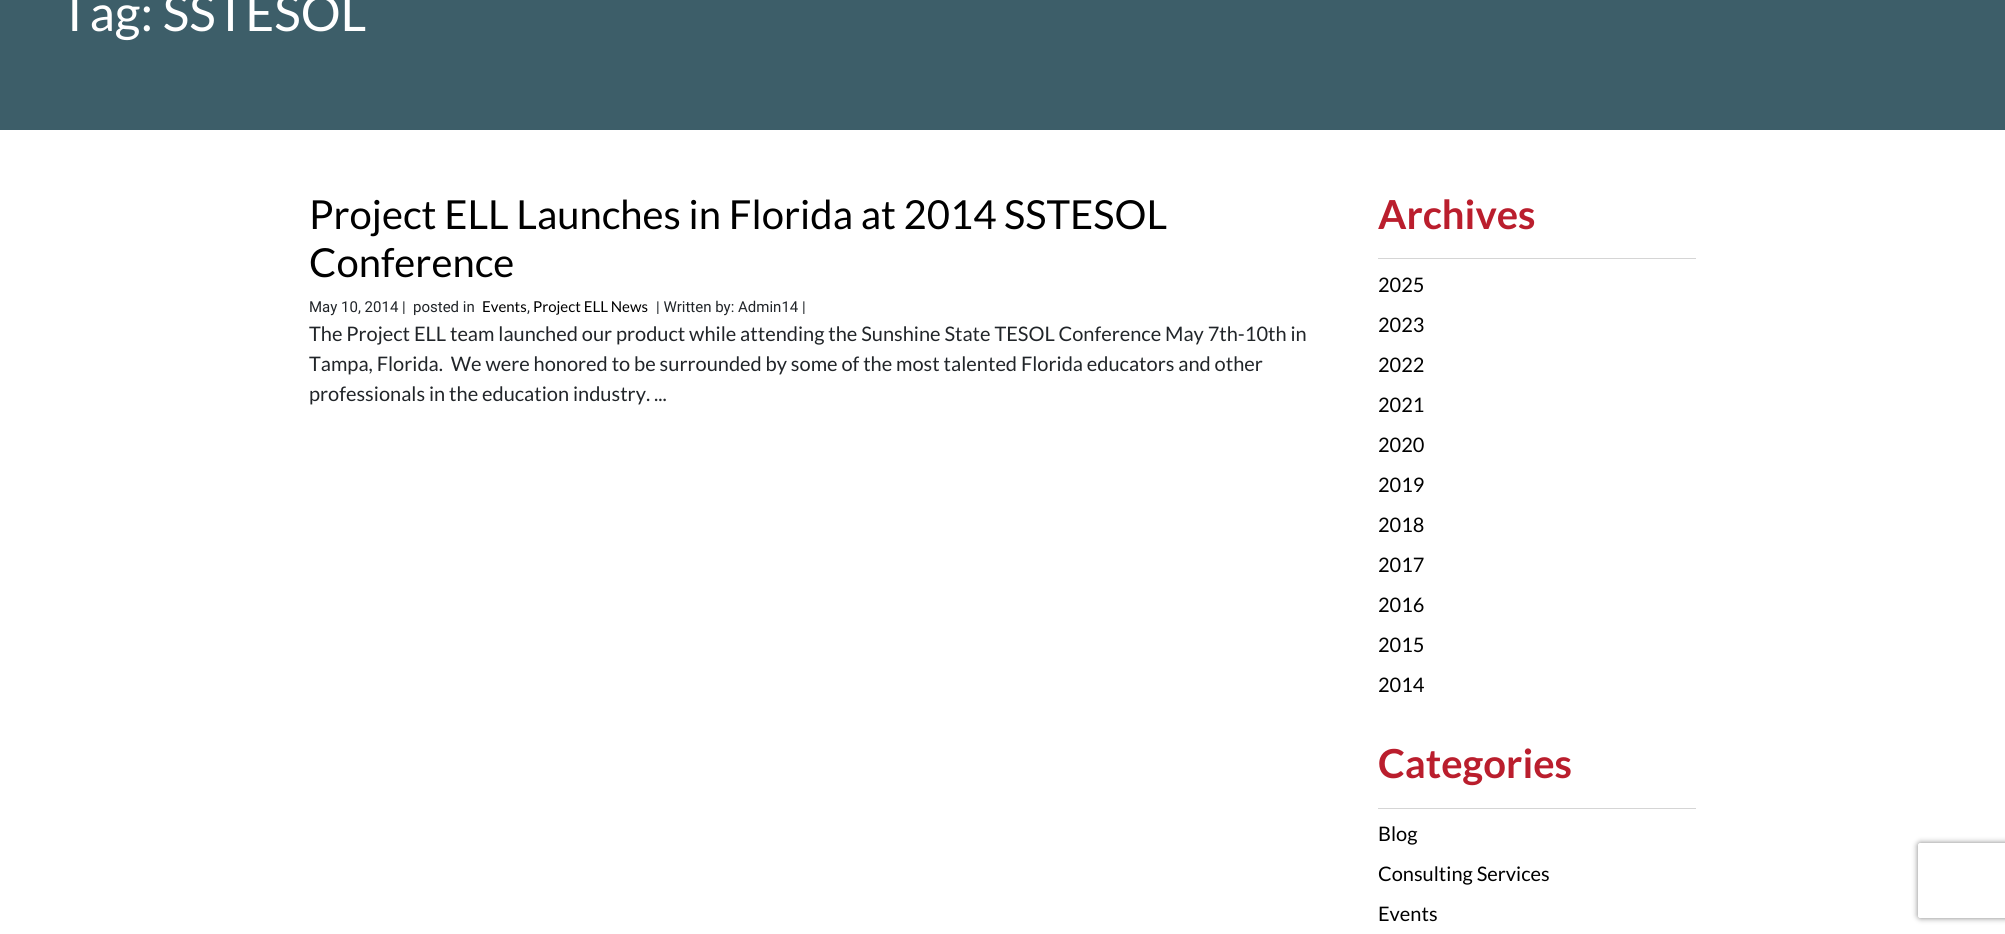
import math
import cairo


def round_path(ctx, x, y, w, h, r):
	ctx.new_sub_path()
	for i, (u, v) in enumerate([(x + w - r, y + h - r), (x + r, y + h - r), (x + r, y + r), (x + w - r, y + r)]):
		ctx.arc(u, v, r, i * math.pi / 2, (i + 1) * math.pi / 2)
	ctx.close_path()

def blur_box(ctx, x, y, w, h, r, blur, alpha):
	ctx.push_group_with_content(cairo.CONTENT_ALPHA)
	ctx.set_operator(cairo.OPERATOR_SOURCE)
	for i in range(15, -16, -2):
		e = blur * i / 6
		if min(w, h) + 2 * e > 0:
			ctx.set_source_rgba(0, 0, 0, alpha * math.erfc((i - 1) / 8.5) / 2)
			round_path(ctx, x - e, y - e, w + 2 * e, h + 2 * e, max(0, min(r + e + blur * .6, min(w, h) / 2 + e)))
			ctx.fill()
	ctx.mask(ctx.pop_group())

def draw(ctx):
	ctx.set_source_rgb(1, 1, 1)
	ctx.paint()
	ctx.set_source_rgb(0.239, 0.369, 0.412)
	ctx.rectangle(0, 0, 2005, 130)
	ctx.fill()
	ctx.select_font_face('Lato')
	ctx.set_font_size(50)
	ctx.set_source_rgb(1, 1, 1)
	ctx.move_to(60, 31)
	ctx.show_text('Tag: SSTESOL')
	ctx.set_font_size(40)
	ctx.set_source_rgb(0, 0, 0)
	ctx.move_to(309, 229)
	ctx.show_text('Project ELL Launches in Florida at 2014 SSTESOL')
	ctx.move_to(309, 277)
	ctx.show_text('Conference')
	ctx.select_font_face('Roboto')
	ctx.set_font_size(15)
	ctx.set_source_rgb(0.129, 0.145, 0.161)
	ctx.move_to(309, 312)
	ctx.show_text('May 10, 2014 |')
	ctx.move_to(413, 312)
	ctx.show_text('posted in')
	ctx.select_font_face('Lato')
	ctx.set_source_rgb(0, 0, 0)
	ctx.move_to(482, 312)
	ctx.show_text('Events')
	ctx.select_font_face('Roboto')
	ctx.set_source_rgb(0.129, 0.145, 0.161)
	ctx.move_to(527, 312)
	ctx.show_text(',')
	ctx.select_font_face('Lato')
	ctx.set_source_rgb(0, 0, 0)
	ctx.move_to(533, 312)
	ctx.show_text('Project ELL News')
	ctx.select_font_face('Roboto')
	ctx.set_source_rgb(0.129, 0.145, 0.161)
	ctx.move_to(656, 312)
	ctx.show_text('| Written by: Admin14 |')
	ctx.select_font_face('Lato')
	ctx.set_font_size(20)
	for x, y, s in [
		(309, 341, 'The Project ELL team launched our product while attending the Sunshine State TESOL Conference May 7th-10th in'),
		(309, 371, 'Tampa, Florida.  We were honored to be surrounded by some of the most talented Florida educators and other'),
		(309, 401, 'professionals in the education industry. ...'),
	]:
		ctx.move_to(x, y)
		ctx.show_text(s)
	ctx.set_source_rgb(0.835, 0.835, 0.835)
	ctx.rectangle(1378, 258, 318, 1)
	ctx.fill()
	ctx.select_font_face('Lato', cairo.FONT_SLANT_NORMAL, cairo.FONT_WEIGHT_BOLD)
	ctx.set_font_size(40)
	ctx.set_source_rgb(0.729, 0.118, 0.176)
	ctx.move_to(1378, 229)
	ctx.show_text('Archives')
	ctx.select_font_face('Lato')
	ctx.set_font_size(20)
	ctx.set_source_rgb(0, 0, 0)
	for x, y, s in [
		(1378, 292, '2025'),
		(1378, 332, '2023'),
		(1378, 372, '2022'),
		(1378, 412, '2021'),
		(1378, 452, '2020'),
		(1378, 492, '2019'),
		(1378, 532, '2018'),
		(1378, 572, '2017'),
		(1378, 612, '2016'),
		(1378, 652, '2015'),
		(1378, 692, '2014'),
	]:
		ctx.move_to(x, y)
		ctx.show_text(s)
	ctx.set_source_rgb(0.835, 0.835, 0.835)
	ctx.rectangle(1378, 808, 318, 1)
	ctx.fill()
	ctx.select_font_face('Lato', cairo.FONT_SLANT_NORMAL, cairo.FONT_WEIGHT_BOLD)
	ctx.set_font_size(40)
	ctx.set_source_rgb(0.729, 0.118, 0.176)
	ctx.move_to(1378, 778)
	ctx.show_text('Categories')
	ctx.select_font_face('Lato')
	ctx.set_font_size(20)
	ctx.set_source_rgb(0, 0, 0)
	for x, y, s in [
		(1378, 841, 'Blog'),
		(1378, 881, 'Consulting Services'),
		(1378, 921, 'Events'),
	]:
		ctx.move_to(x, y)
		ctx.show_text(s)
	ctx.save()
	ctx.set_fill_rule(cairo.FILL_RULE_EVEN_ODD)
	ctx.new_path()
	ctx.move_to(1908, 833)
	ctx.line_to(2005, 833)
	ctx.line_to(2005, 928)
	ctx.line_to(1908, 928)
	ctx.close_path()
	ctx.move_to(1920.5, 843)
	ctx.line_to(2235.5, 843)
	ctx.curve_to(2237, 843, 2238, 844, 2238, 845.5)
	ctx.line_to(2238, 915.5)
	ctx.curve_to(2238, 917, 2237, 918, 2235.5, 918)
	ctx.line_to(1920.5, 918)
	ctx.curve_to(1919, 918, 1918, 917, 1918, 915.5)
	ctx.line_to(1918, 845.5)
	ctx.curve_to(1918, 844, 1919, 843, 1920.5, 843)
	ctx.close_path()
	ctx.clip()
	ctx.set_source_rgb(0.502, 0.502, 0.502)
	blur_box(ctx, 1918, 843, 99, 75, 2.5, 3, 1)
	ctx.restore()


surface = cairo.ImageSurface(cairo.FORMAT_RGB24, 2005, 934)
ctx = cairo.Context(surface)
options = cairo.FontOptions()
options.set_hint_metrics(cairo.HINT_METRICS_OFF)
options.set_hint_style(cairo.HINT_STYLE_NONE)
ctx.set_font_options(options)
ctx.set_miter_limit(4)
draw(ctx)
surface.write_to_png('image.png')
